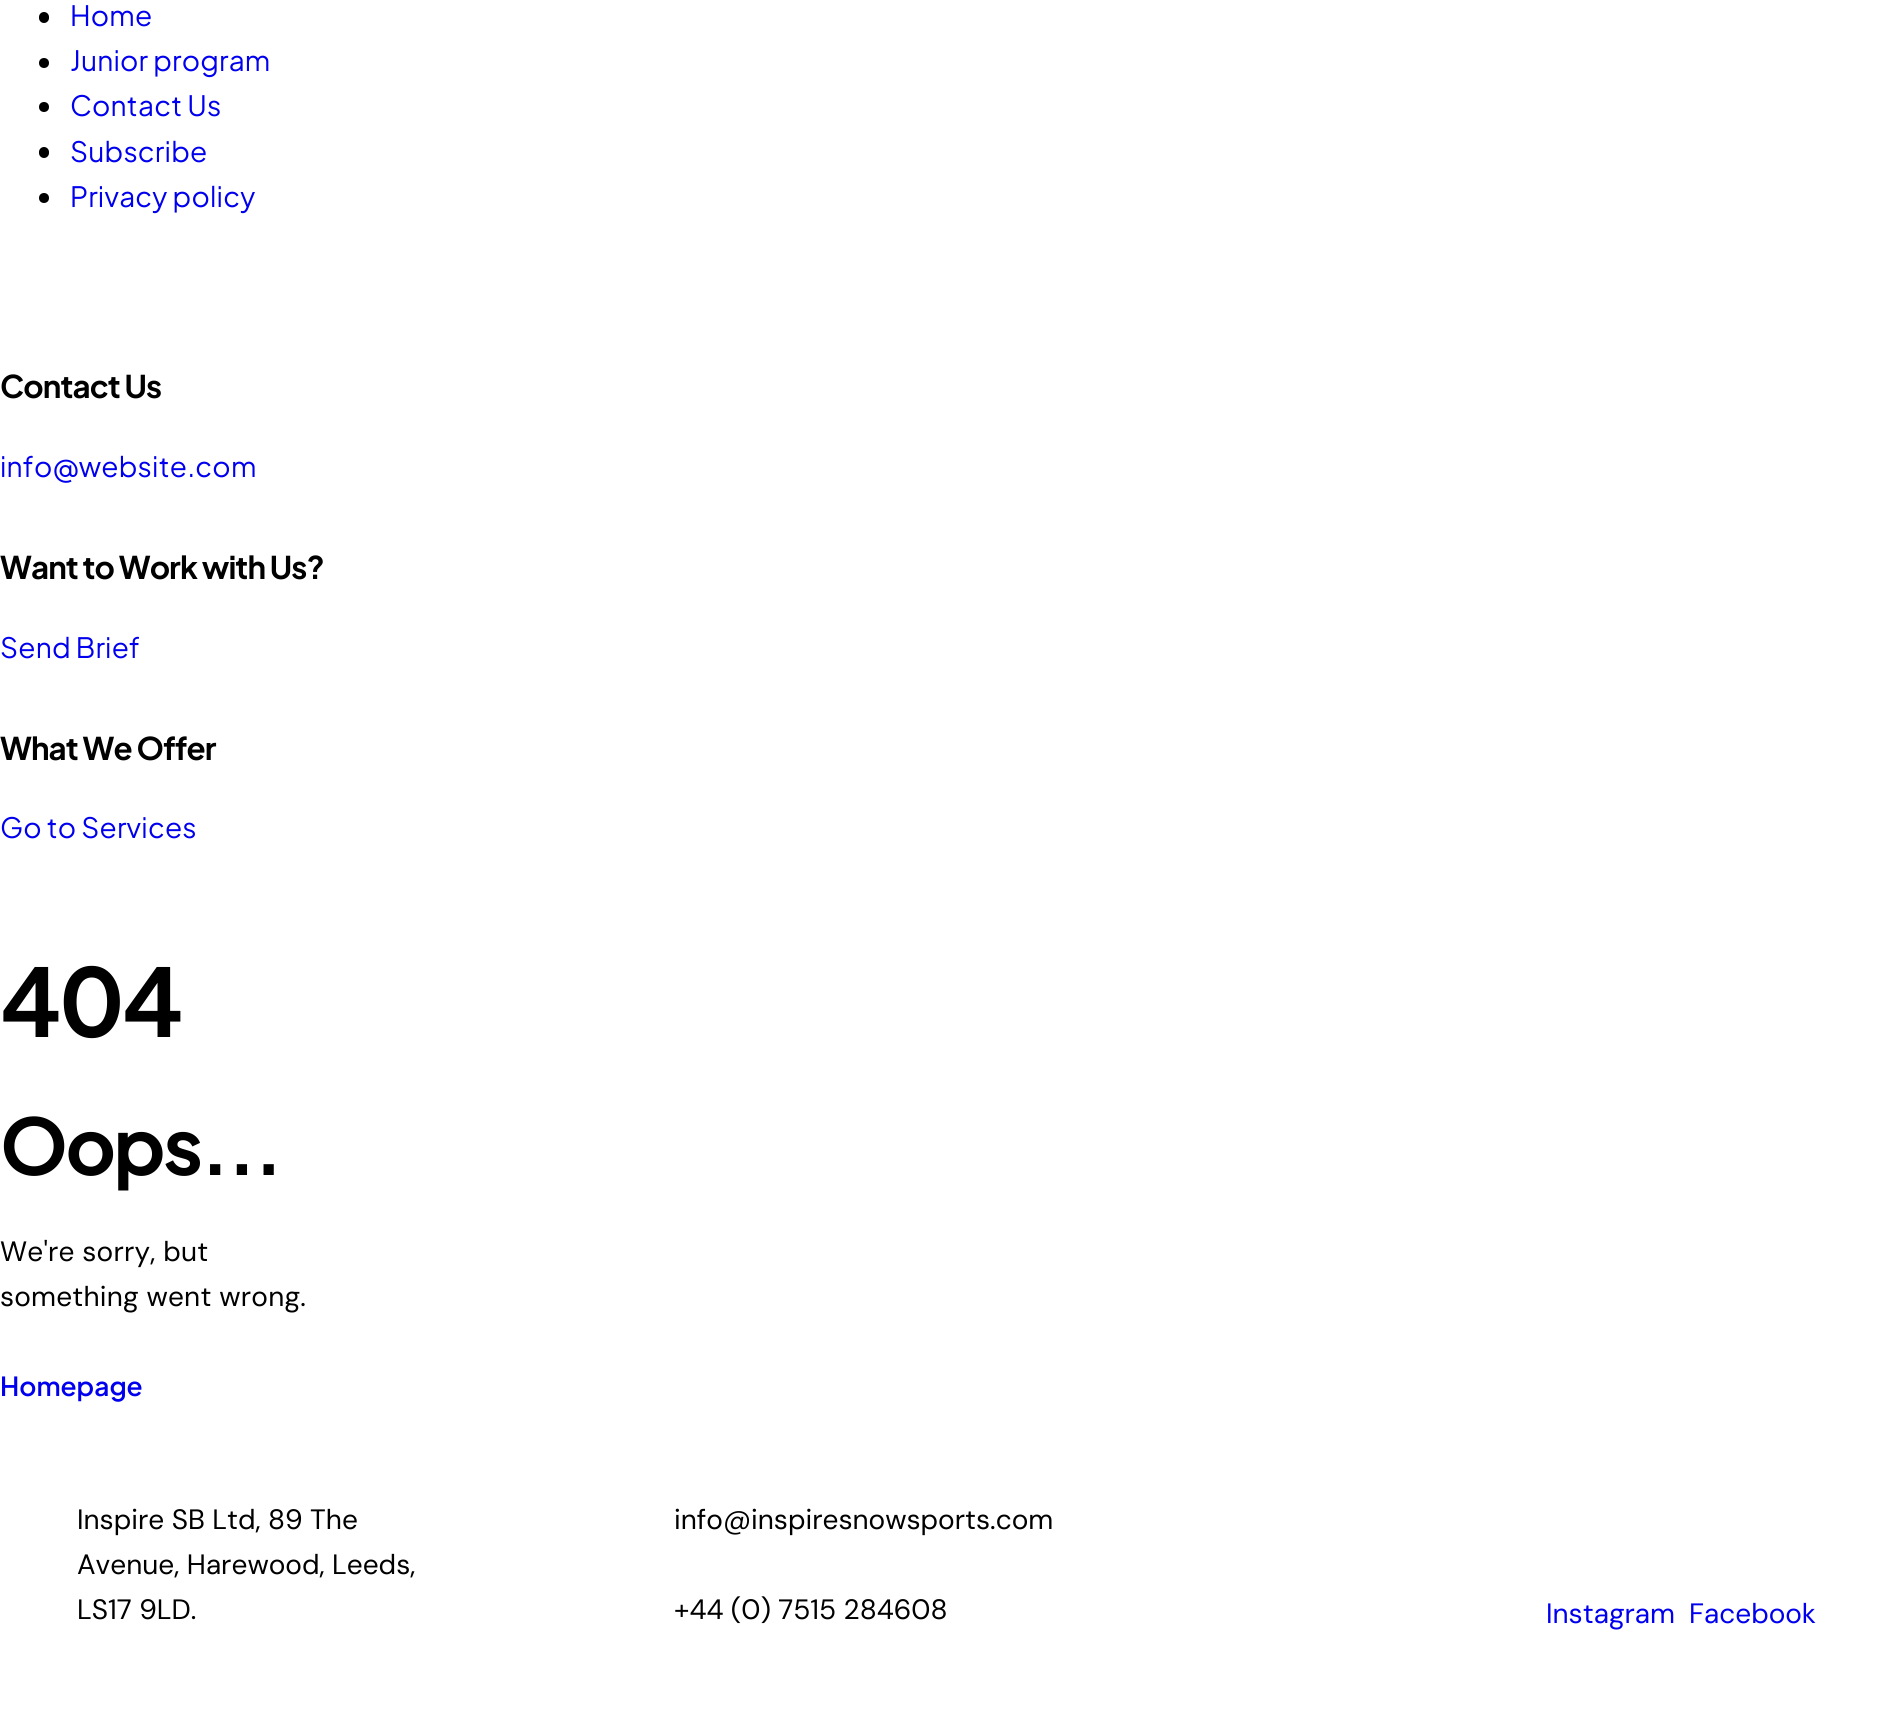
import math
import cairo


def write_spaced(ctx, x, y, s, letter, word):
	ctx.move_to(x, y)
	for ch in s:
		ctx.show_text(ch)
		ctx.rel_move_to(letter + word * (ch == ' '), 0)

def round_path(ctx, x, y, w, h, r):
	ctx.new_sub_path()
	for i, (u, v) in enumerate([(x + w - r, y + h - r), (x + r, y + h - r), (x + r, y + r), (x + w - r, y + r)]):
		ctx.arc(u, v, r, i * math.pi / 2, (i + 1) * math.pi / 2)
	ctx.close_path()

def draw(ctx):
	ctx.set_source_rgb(1, 1, 1)
	ctx.paint()
	ctx.set_source_rgb(0, 0, 0)
	round_path(ctx, 39, 12, 10, 11, 5)
	ctx.fill()
	ctx.select_font_face('Plus Jakarta Sans')
	ctx.set_font_size(28)
	ctx.set_source_rgb(0, 0, 0.933)
	write_spaced(ctx, 70, 26, 'Home', 0.2, 0)
	ctx.set_source_rgb(0, 0, 0)
	ctx.new_path()
	ctx.arc(44, 63, 5, 0, 2 * math.pi)
	ctx.fill()
	ctx.set_source_rgb(0, 0, 0.933)
	write_spaced(ctx, 70, 71, 'Junior program', 0.2, 0)
	ctx.set_source_rgb(0, 0, 0)
	ctx.new_path()
	ctx.arc(44, 107, 5, 0, 2 * math.pi)
	ctx.fill()
	ctx.set_source_rgb(0, 0, 0.933)
	write_spaced(ctx, 70, 116, 'Contact Us', 0.2, 0)
	ctx.set_source_rgb(0, 0, 0)
	round_path(ctx, 39, 147, 10, 11, 5)
	ctx.fill()
	ctx.set_source_rgb(0, 0, 0.933)
	write_spaced(ctx, 70, 162, 'Subscribe', 0.2, 0)
	ctx.set_source_rgb(0, 0, 0)
	ctx.new_path()
	ctx.arc(44, 198, 5, 0, 2 * math.pi)
	ctx.fill()
	ctx.set_source_rgb(0, 0, 0.933)
	write_spaced(ctx, 70, 207, 'Privacy policy', 0.2, 0)
	ctx.select_font_face('Plus Jakarta Sans', cairo.FONT_SLANT_NORMAL, cairo.FONT_WEIGHT_BOLD)
	ctx.set_font_size(31.25)
	ctx.set_source_rgb(0, 0, 0)
	write_spaced(ctx, 0, 398, 'Contact Us', -0.9, 0)
	ctx.select_font_face('Plus Jakarta Sans')
	ctx.set_font_size(28)
	ctx.set_source_rgb(0, 0, 0.933)
	write_spaced(ctx, 0, 477, 'info@website.com', 0.2, 0)
	ctx.select_font_face('Plus Jakarta Sans', cairo.FONT_SLANT_NORMAL, cairo.FONT_WEIGHT_BOLD)
	ctx.set_font_size(31.25)
	ctx.set_source_rgb(0, 0, 0)
	write_spaced(ctx, 0, 579, 'Want to Work with Us?', -0.9, 0)
	ctx.select_font_face('Plus Jakarta Sans')
	ctx.set_font_size(28)
	ctx.set_source_rgb(0, 0, 0.933)
	write_spaced(ctx, 0, 658, 'Send Brief', 0.2, 0)
	ctx.select_font_face('Plus Jakarta Sans', cairo.FONT_SLANT_NORMAL, cairo.FONT_WEIGHT_BOLD)
	ctx.set_font_size(31.25)
	ctx.set_source_rgb(0, 0, 0)
	write_spaced(ctx, 0, 760, 'What We Offer', -0.9, 0)
	ctx.select_font_face('Plus Jakarta Sans')
	ctx.set_font_size(28)
	ctx.set_source_rgb(0, 0, 0.933)
	write_spaced(ctx, 0, 838, 'Go to Services', 0.2, 0)
	ctx.select_font_face('Plus Jakarta Sans', cairo.FONT_SLANT_NORMAL, cairo.FONT_WEIGHT_BOLD)
	ctx.set_font_size(94)
	ctx.set_source_rgb(0, 0, 0)
	write_spaced(ctx, 0, 1037, '404', -3, 0)
	ctx.set_font_size(77.5)
	write_spaced(ctx, 0, 1175, 'Oops...', -2.5, 0)
	ctx.select_font_face('DM Sans')
	ctx.set_font_size(28)
	write_spaced(ctx, 0, 1261, 'We\'re sorry, but', 0.2, 0)
	write_spaced(ctx, 0, 1306, 'something went wrong.', 0.2, 0)
	ctx.select_font_face('Plus Jakarta Sans SemiBold')
	ctx.set_font_size(26.25)
	ctx.set_source_rgb(0, 0, 0.933)
	ctx.move_to(0, 1396)
	ctx.show_text('Homepage')
	ctx.select_font_face('DM Sans')
	ctx.set_font_size(28)
	ctx.set_source_rgb(0, 0, 0)
	for x, y, s in [
		(77, 1529, 'Inspire SB Ltd, 89 The'),
		(77, 1574, 'Avenue, Harewood, Leeds,'),
		(77, 1619, 'LS17 9LD.'),
		(674, 1529, 'info@inspiresnowsports.com'),
		(674, 1619, '+44 (0) 7515 284608'),
	]:
		ctx.move_to(x, y)
		ctx.show_text(s)
	ctx.set_source_rgb(0, 0, 0.933)
	ctx.move_to(1546, 1623)
	ctx.show_text('Instagram')
	ctx.move_to(1689, 1623)
	ctx.show_text('Facebook')


surface = cairo.ImageSurface(cairo.FORMAT_RGB24, 1893, 1720)
ctx = cairo.Context(surface)
options = cairo.FontOptions()
options.set_hint_metrics(cairo.HINT_METRICS_OFF)
options.set_hint_style(cairo.HINT_STYLE_NONE)
ctx.set_font_options(options)
ctx.set_miter_limit(4)
draw(ctx)
surface.write_to_png('image.png')
